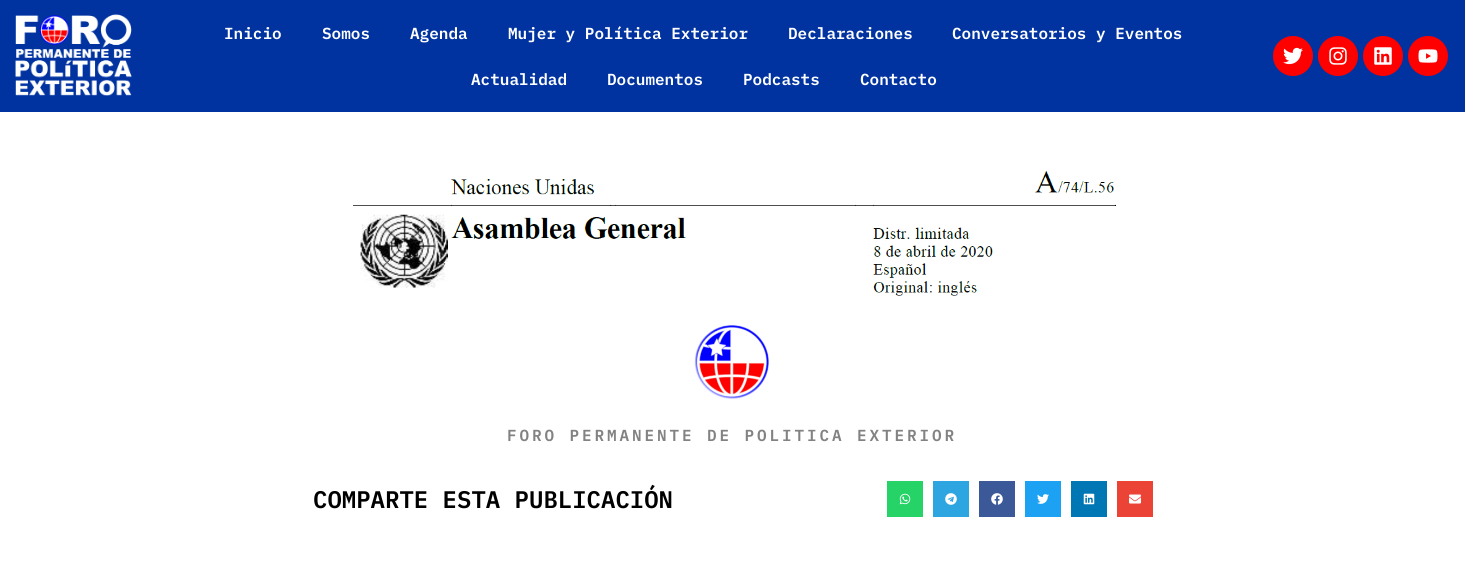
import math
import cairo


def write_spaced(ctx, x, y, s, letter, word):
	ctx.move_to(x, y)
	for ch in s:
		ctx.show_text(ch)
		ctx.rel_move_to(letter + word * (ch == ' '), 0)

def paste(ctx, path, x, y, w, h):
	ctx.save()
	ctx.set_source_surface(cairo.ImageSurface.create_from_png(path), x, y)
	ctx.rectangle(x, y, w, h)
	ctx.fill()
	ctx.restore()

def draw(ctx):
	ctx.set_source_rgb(1, 1, 1)
	ctx.paint()
	ctx.set_source_rgb(0, 0.2, 0.627)
	ctx.rectangle(0, 0, 1465, 112)
	ctx.fill()
	paste(ctx, 'media/1.png', 15, 14, 117, 82)
	ctx.select_font_face('IBM Plex Mono SemiBold')
	ctx.set_font_size(16)
	ctx.set_source_rgb(1, 1, 1)
	for x, y, s in [
		(224, 39, 'Inicio'),
		(322, 39, 'Somos'),
		(410, 39, 'Agenda'),
		(508, 39, 'Mujer y Política Exterior'),
		(788, 39, 'Declaraciones'),
		(952, 39, 'Conversatorios y Eventos'),
		(471, 85, 'Actualidad'),
		(607, 85, 'Documentos'),
		(743, 85, 'Podcasts'),
		(860, 85, 'Contacto'),
	]:
		ctx.move_to(x, y)
		ctx.show_text(s)
	ctx.set_source_rgb(0.996, 0, 0)
	ctx.new_path()
	ctx.arc(1293, 56, 20, 0, 2 * math.pi)
	ctx.fill()
	paste(ctx, 'media/2.png', 1283, 47, 20, 18)
	ctx.arc(1338, 56, 20, 0, 2 * math.pi)
	ctx.fill()
	paste(ctx, 'media/3.png', 1329, 47, 18, 18)
	ctx.arc(1383, 56, 20, 0, 2 * math.pi)
	ctx.fill()
	paste(ctx, 'media/4.png', 1374, 47, 18, 18)
	ctx.arc(1428, 56, 20, 0, 2 * math.pi)
	ctx.fill()
	paste(ctx, 'media/5.png', 1418, 49, 20, 14)
	paste(ctx, 'media/6.png', 353, 171, 763, 125)
	paste(ctx, 'media/7.png', 694, 324, 75, 75)
	ctx.set_source_rgb(0.51, 0.51, 0.51)
	write_spaced(ctx, 507, 441, 'FORO PERMANENTE DE POLITICA EXTERIOR', 2.9, 0)
	ctx.set_font_size(24)
	ctx.set_source_rgb(0, 0, 0)
	ctx.move_to(313, 508)
	ctx.show_text('COMPARTE ESTA PUBLICACIÓN')
	ctx.set_source_rgb(0.145, 0.827, 0.4)
	ctx.rectangle(887, 481, 36, 36)
	ctx.fill()
	paste(ctx, 'media/8.png', 899, 493, 12, 12)
	ctx.set_source_rgb(0.173, 0.647, 0.878)
	ctx.rectangle(933, 481, 36, 36)
	ctx.fill()
	paste(ctx, 'media/9.png', 945, 493, 12, 12)
	ctx.set_source_rgb(0.231, 0.349, 0.596)
	ctx.rectangle(979, 481, 36, 36)
	ctx.fill()
	paste(ctx, 'media/10.png', 991, 493, 12, 12)
	ctx.set_source_rgb(0.114, 0.631, 0.949)
	ctx.rectangle(1025, 481, 36, 36)
	ctx.fill()
	paste(ctx, 'media/11.png', 1037, 494, 12, 10)
	ctx.set_source_rgb(0, 0.467, 0.71)
	ctx.rectangle(1071, 481, 36, 36)
	ctx.fill()
	paste(ctx, 'media/12.png', 1083, 493, 12, 12)
	ctx.set_source_rgb(0.918, 0.263, 0.208)
	ctx.rectangle(1117, 481, 36, 36)
	ctx.fill()
	paste(ctx, 'media/13.png', 1129, 494, 12, 10)


surface = cairo.ImageSurface(cairo.FORMAT_RGB24, 1465, 561)
ctx = cairo.Context(surface)
options = cairo.FontOptions()
options.set_hint_metrics(cairo.HINT_METRICS_OFF)
options.set_hint_style(cairo.HINT_STYLE_NONE)
ctx.set_font_options(options)
ctx.set_miter_limit(4)
draw(ctx)
surface.write_to_png('image.png')
